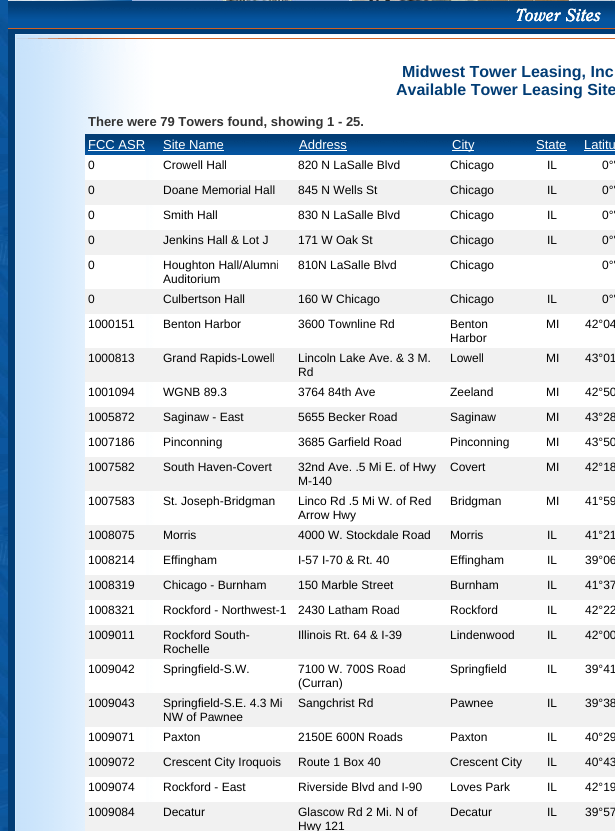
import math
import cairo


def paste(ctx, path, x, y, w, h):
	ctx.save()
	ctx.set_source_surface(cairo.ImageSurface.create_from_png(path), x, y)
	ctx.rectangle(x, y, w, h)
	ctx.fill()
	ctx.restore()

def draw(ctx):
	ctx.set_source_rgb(1, 1, 1)
	ctx.paint()
	paste(ctx, 'media/1.png', 0, 0, 8, 831)
	paste(ctx, 'media/2.png', 8, 0, 607, 1)
	paste(ctx, 'media/3.png', 8, 1, 496, 51)
	paste(ctx, 'media/4.png', 504, 1, 111, 51)
	paste(ctx, 'media/5.png', 8, 52, 607, 779)
	ctx.select_font_face('Liberation Sans', cairo.FONT_SLANT_NORMAL, cairo.FONT_WEIGHT_BOLD)
	ctx.set_font_size(16)
	ctx.set_source_rgb(0.008, 0.239, 0.459)
	ctx.move_to(402, 77)
	ctx.show_text('Midwest Tower Leasing, Inc')
	ctx.move_to(396, 95)
	ctx.show_text('Available Tower Leasing Site')
	ctx.set_font_size(13)
	ctx.set_source_rgb(0.2, 0.2, 0.2)
	ctx.move_to(88, 126)
	ctx.show_text('There were 79 Towers found, showing 1 - 25.')
	paste(ctx, 'media/6.png', 85, 134, 75, 21)
	ctx.select_font_face('Liberation Sans')
	ctx.set_source_rgb(1, 1, 1)
	ctx.move_to(88, 149)
	ctx.show_text('FCC ASR')
	ctx.rectangle(88, 150, 57, 1)
	ctx.fill()
	paste(ctx, 'media/7.png', 160, 134, 136, 21)
	ctx.move_to(163, 149)
	ctx.show_text('Site Name')
	ctx.rectangle(163, 150, 61, 1)
	ctx.fill()
	paste(ctx, 'media/8.png', 296, 134, 153, 21)
	ctx.move_to(299, 149)
	ctx.show_text('Address')
	ctx.rectangle(299, 150, 48, 1)
	ctx.fill()
	paste(ctx, 'media/9.png', 449, 134, 84, 21)
	ctx.rectangle(452, 150, 22, 1)
	ctx.fill()
	ctx.move_to(452, 149)
	ctx.show_text('City')
	paste(ctx, 'media/10.png', 533, 134, 37, 21)
	ctx.move_to(536, 149)
	ctx.show_text('State')
	ctx.rectangle(536, 150, 31, 1)
	ctx.fill()
	paste(ctx, 'media/11.png', 570, 134, 45, 21)
	ctx.move_to(584, 149)
	ctx.show_text('Latitu')
	ctx.rectangle(584, 150, 31, 1)
	ctx.fill()
	ctx.rectangle(85, 155, 61, 25)
	ctx.fill()
	ctx.set_font_size(12)
	ctx.set_source_rgb(0, 0, 0)
	for x, y, s in [
		(88, 169, '0'),
		(163, 169, 'Crowell Hall'),
		(298, 169, '820 N LaSalle Blvd'),
		(450, 169, 'Chicago'),
		(547, 169, 'IL'),
		(602, 169, '0°\''),
	]:
		ctx.move_to(x, y)
		ctx.show_text(s)
	ctx.set_source_rgb(0.945, 0.945, 0.945)
	ctx.rectangle(85, 180, 530, 25)
	ctx.fill()
	ctx.set_source_rgb(0, 0, 0)
	for x, y, s in [
		(88, 194, '0'),
		(163, 194, 'Doane Memorial Hall'),
		(298, 194, '845 N Wells St'),
		(450, 194, 'Chicago'),
		(547, 194, 'IL'),
		(602, 194, '0°\''),
	]:
		ctx.move_to(x, y)
		ctx.show_text(s)
	ctx.set_source_rgb(1, 1, 1)
	ctx.rectangle(85, 205, 61, 25)
	ctx.fill()
	ctx.set_source_rgb(0, 0, 0)
	for x, y, s in [
		(88, 219, '0'),
		(163, 219, 'Smith Hall'),
		(298, 219, '830 N LaSalle Blvd'),
		(450, 219, 'Chicago'),
		(547, 219, 'IL'),
		(602, 219, '0°\''),
	]:
		ctx.move_to(x, y)
		ctx.show_text(s)
	ctx.set_source_rgb(0.945, 0.945, 0.945)
	ctx.rectangle(85, 230, 530, 25)
	ctx.fill()
	ctx.set_source_rgb(0, 0, 0)
	for x, y, s in [
		(88, 244, '0'),
		(163, 244, 'Jenkins Hall & Lot J'),
		(298, 244, '171 W Oak St'),
		(450, 244, 'Chicago'),
		(547, 244, 'IL'),
		(602, 244, '0°\''),
	]:
		ctx.move_to(x, y)
		ctx.show_text(s)
	ctx.set_source_rgb(1, 1, 1)
	ctx.rectangle(85, 255, 61, 34)
	ctx.fill()
	ctx.set_source_rgb(0, 0, 0)
	for x, y, s in [
		(88, 269, '0'),
		(163, 269, 'Houghton Hall/Alumni'),
		(163, 283, 'Auditorium'),
		(298, 269, '810N LaSalle Blvd'),
		(450, 269, 'Chicago'),
		(602, 269, '0°\''),
	]:
		ctx.move_to(x, y)
		ctx.show_text(s)
	ctx.set_source_rgb(0.945, 0.945, 0.945)
	ctx.rectangle(85, 289, 530, 25)
	ctx.fill()
	ctx.set_source_rgb(0, 0, 0)
	for x, y, s in [
		(88, 303, '0'),
		(163, 303, 'Culbertson Hall'),
		(298, 303, '160 W Chicago'),
		(450, 303, 'Chicago'),
		(547, 303, 'IL'),
		(602, 303, '0°\''),
	]:
		ctx.move_to(x, y)
		ctx.show_text(s)
	ctx.set_source_rgb(1, 1, 1)
	ctx.rectangle(85, 314, 61, 34)
	ctx.fill()
	ctx.set_source_rgb(0, 0, 0)
	for x, y, s in [
		(88, 328, '1000151'),
		(163, 328, 'Benton Harbor'),
		(298, 328, '3600 Townline Rd'),
		(450, 328, 'Benton'),
		(450, 342, 'Harbor'),
		(546, 328, 'MI'),
		(585, 328, '42°04'),
	]:
		ctx.move_to(x, y)
		ctx.show_text(s)
	ctx.set_source_rgb(0.945, 0.945, 0.945)
	ctx.rectangle(85, 348, 530, 34)
	ctx.fill()
	ctx.set_source_rgb(0, 0, 0)
	for x, y, s in [
		(88, 362, '1000813'),
		(163, 362, 'Grand Rapids-Lowell'),
		(298, 362, 'Lincoln Lake Ave. & 3 M.'),
		(298, 376, 'Rd'),
		(450, 362, 'Lowell'),
		(546, 362, 'MI'),
		(585, 362, '43°01'),
	]:
		ctx.move_to(x, y)
		ctx.show_text(s)
	ctx.set_source_rgb(1, 1, 1)
	ctx.rectangle(85, 382, 61, 25)
	ctx.fill()
	ctx.set_source_rgb(0, 0, 0)
	for x, y, s in [
		(88, 396, '1001094'),
		(163, 396, 'WGNB 89.3'),
		(298, 396, '3764 84th Ave'),
		(450, 396, 'Zeeland'),
		(546, 396, 'MI'),
		(585, 396, '42°50'),
	]:
		ctx.move_to(x, y)
		ctx.show_text(s)
	ctx.set_source_rgb(0.945, 0.945, 0.945)
	ctx.rectangle(85, 407, 530, 25)
	ctx.fill()
	ctx.set_source_rgb(0, 0, 0)
	for x, y, s in [
		(88, 421, '1005872'),
		(163, 421, 'Saginaw - East'),
		(298, 421, '5655 Becker Road'),
		(450, 421, 'Saginaw'),
		(546, 421, 'MI'),
		(585, 421, '43°28'),
	]:
		ctx.move_to(x, y)
		ctx.show_text(s)
	ctx.set_source_rgb(1, 1, 1)
	ctx.rectangle(85, 432, 61, 25)
	ctx.fill()
	ctx.set_source_rgb(0, 0, 0)
	for x, y, s in [
		(88, 446, '1007186'),
		(163, 446, 'Pinconning'),
		(298, 446, '3685 Garfield Road'),
		(450, 446, 'Pinconning'),
		(546, 446, 'MI'),
		(585, 446, '43°50'),
	]:
		ctx.move_to(x, y)
		ctx.show_text(s)
	ctx.set_source_rgb(0.945, 0.945, 0.945)
	ctx.rectangle(85, 457, 530, 34)
	ctx.fill()
	ctx.set_source_rgb(0, 0, 0)
	for x, y, s in [
		(88, 471, '1007582'),
		(163, 471, 'South Haven-Covert'),
		(298, 471, '32nd Ave. .5 Mi E. of Hwy'),
		(298, 485, 'M-140'),
		(450, 471, 'Covert'),
		(546, 471, 'MI'),
		(585, 471, '42°18'),
	]:
		ctx.move_to(x, y)
		ctx.show_text(s)
	ctx.set_source_rgb(1, 1, 1)
	ctx.rectangle(85, 491, 61, 34)
	ctx.fill()
	ctx.set_source_rgb(0, 0, 0)
	for x, y, s in [
		(88, 505, '1007583'),
		(163, 505, 'St. Joseph-Bridgman'),
		(298, 505, 'Linco Rd .5 Mi W. of Red'),
		(298, 519, 'Arrow Hwy'),
		(450, 505, 'Bridgman'),
		(546, 505, 'MI'),
		(585, 505, '41°59'),
	]:
		ctx.move_to(x, y)
		ctx.show_text(s)
	ctx.set_source_rgb(0.945, 0.945, 0.945)
	ctx.rectangle(85, 525, 530, 25)
	ctx.fill()
	ctx.set_source_rgb(0, 0, 0)
	for x, y, s in [
		(88, 539, '1008075'),
		(163, 539, 'Morris'),
		(298, 539, '4000 W. Stockdale Road'),
		(450, 539, 'Morris'),
		(547, 539, 'IL'),
		(585, 539, '41°21'),
	]:
		ctx.move_to(x, y)
		ctx.show_text(s)
	ctx.set_source_rgb(1, 1, 1)
	ctx.rectangle(85, 550, 61, 25)
	ctx.fill()
	ctx.set_source_rgb(0, 0, 0)
	for x, y, s in [
		(88, 564, '1008214'),
		(163, 564, 'Effingham'),
		(298, 564, 'I-57 I-70 & Rt. 40'),
		(450, 564, 'Effingham'),
		(547, 564, 'IL'),
		(585, 564, '39°06'),
	]:
		ctx.move_to(x, y)
		ctx.show_text(s)
	ctx.set_source_rgb(0.945, 0.945, 0.945)
	ctx.rectangle(85, 575, 530, 25)
	ctx.fill()
	ctx.set_source_rgb(0, 0, 0)
	for x, y, s in [
		(88, 589, '1008319'),
		(163, 589, 'Chicago - Burnham'),
		(298, 589, '150 Marble Street'),
		(450, 589, 'Burnham'),
		(547, 589, 'IL'),
		(585, 589, '41°37'),
	]:
		ctx.move_to(x, y)
		ctx.show_text(s)
	ctx.set_source_rgb(1, 1, 1)
	ctx.rectangle(85, 600, 61, 25)
	ctx.fill()
	ctx.set_source_rgb(0, 0, 0)
	for x, y, s in [
		(88, 614, '1008321'),
		(163, 614, 'Rockford - Northwest-1'),
		(298, 614, '2430 Latham Road'),
		(450, 614, 'Rockford'),
		(547, 614, 'IL'),
		(585, 614, '42°22'),
	]:
		ctx.move_to(x, y)
		ctx.show_text(s)
	ctx.set_source_rgb(0.945, 0.945, 0.945)
	ctx.rectangle(85, 625, 530, 34)
	ctx.fill()
	ctx.set_source_rgb(0, 0, 0)
	for x, y, s in [
		(88, 639, '1009011'),
		(163, 639, 'Rockford South-'),
		(163, 653, 'Rochelle'),
		(298, 639, 'Illinois Rt. 64 & I-39'),
		(450, 639, 'Lindenwood'),
		(547, 639, 'IL'),
		(585, 639, '42°00'),
	]:
		ctx.move_to(x, y)
		ctx.show_text(s)
	ctx.set_source_rgb(1, 1, 1)
	ctx.rectangle(85, 659, 61, 34)
	ctx.fill()
	ctx.set_source_rgb(0, 0, 0)
	for x, y, s in [
		(88, 673, '1009042'),
		(163, 673, 'Springfield-S.W.'),
		(298, 673, '7100 W. 700S Road'),
		(298, 687, '(Curran)'),
		(450, 673, 'Springfield'),
		(547, 673, 'IL'),
		(585, 673, '39°41'),
	]:
		ctx.move_to(x, y)
		ctx.show_text(s)
	ctx.set_source_rgb(0.945, 0.945, 0.945)
	ctx.rectangle(85, 693, 530, 34)
	ctx.fill()
	ctx.set_source_rgb(0, 0, 0)
	for x, y, s in [
		(88, 707, '1009043'),
		(163, 707, 'Springfield-S.E. 4.3 Mi'),
		(163, 721, 'NW of Pawnee'),
		(298, 707, 'Sangchrist Rd'),
		(450, 707, 'Pawnee'),
		(547, 707, 'IL'),
		(585, 707, '39°38'),
	]:
		ctx.move_to(x, y)
		ctx.show_text(s)
	ctx.set_source_rgb(1, 1, 1)
	ctx.rectangle(85, 727, 61, 25)
	ctx.fill()
	ctx.set_source_rgb(0, 0, 0)
	for x, y, s in [
		(88, 741, '1009071'),
		(163, 741, 'Paxton'),
		(298, 741, '2150E 600N Roads'),
		(450, 741, 'Paxton'),
		(547, 741, 'IL'),
		(585, 741, '40°29'),
	]:
		ctx.move_to(x, y)
		ctx.show_text(s)
	ctx.set_source_rgb(0.945, 0.945, 0.945)
	ctx.rectangle(85, 752, 530, 25)
	ctx.fill()
	ctx.set_source_rgb(0, 0, 0)
	for x, y, s in [
		(88, 766, '1009072'),
		(163, 766, 'Crescent City Iroquois'),
		(298, 766, 'Route 1 Box 40'),
		(450, 766, 'Crescent City'),
		(547, 766, 'IL'),
		(585, 766, '40°43'),
	]:
		ctx.move_to(x, y)
		ctx.show_text(s)
	ctx.set_source_rgb(1, 1, 1)
	ctx.rectangle(85, 777, 61, 25)
	ctx.fill()
	ctx.set_source_rgb(0, 0, 0)
	for x, y, s in [
		(88, 791, '1009074'),
		(163, 791, 'Rockford - East'),
		(298, 791, 'Riverside Blvd and I-90'),
		(450, 791, 'Loves Park'),
		(547, 791, 'IL'),
		(585, 791, '42°19'),
	]:
		ctx.move_to(x, y)
		ctx.show_text(s)
	ctx.set_source_rgb(0.945, 0.945, 0.945)
	ctx.rectangle(85, 802, 530, 29)
	ctx.fill()
	ctx.set_source_rgb(0, 0, 0)
	for x, y, s in [
		(88, 816, '1009084'),
		(163, 816, 'Decatur'),
		(298, 816, 'Glascow Rd 2 Mi. N of'),
		(298, 830, 'Hwy 121'),
		(450, 816, 'Decatur'),
		(547, 816, 'IL'),
		(585, 816, '39°57'),
	]:
		ctx.move_to(x, y)
		ctx.show_text(s)


surface = cairo.ImageSurface(cairo.FORMAT_RGB24, 615, 831)
ctx = cairo.Context(surface)
options = cairo.FontOptions()
options.set_hint_metrics(cairo.HINT_METRICS_OFF)
options.set_hint_style(cairo.HINT_STYLE_NONE)
ctx.set_font_options(options)
ctx.set_miter_limit(4)
draw(ctx)
surface.write_to_png('image.png')
